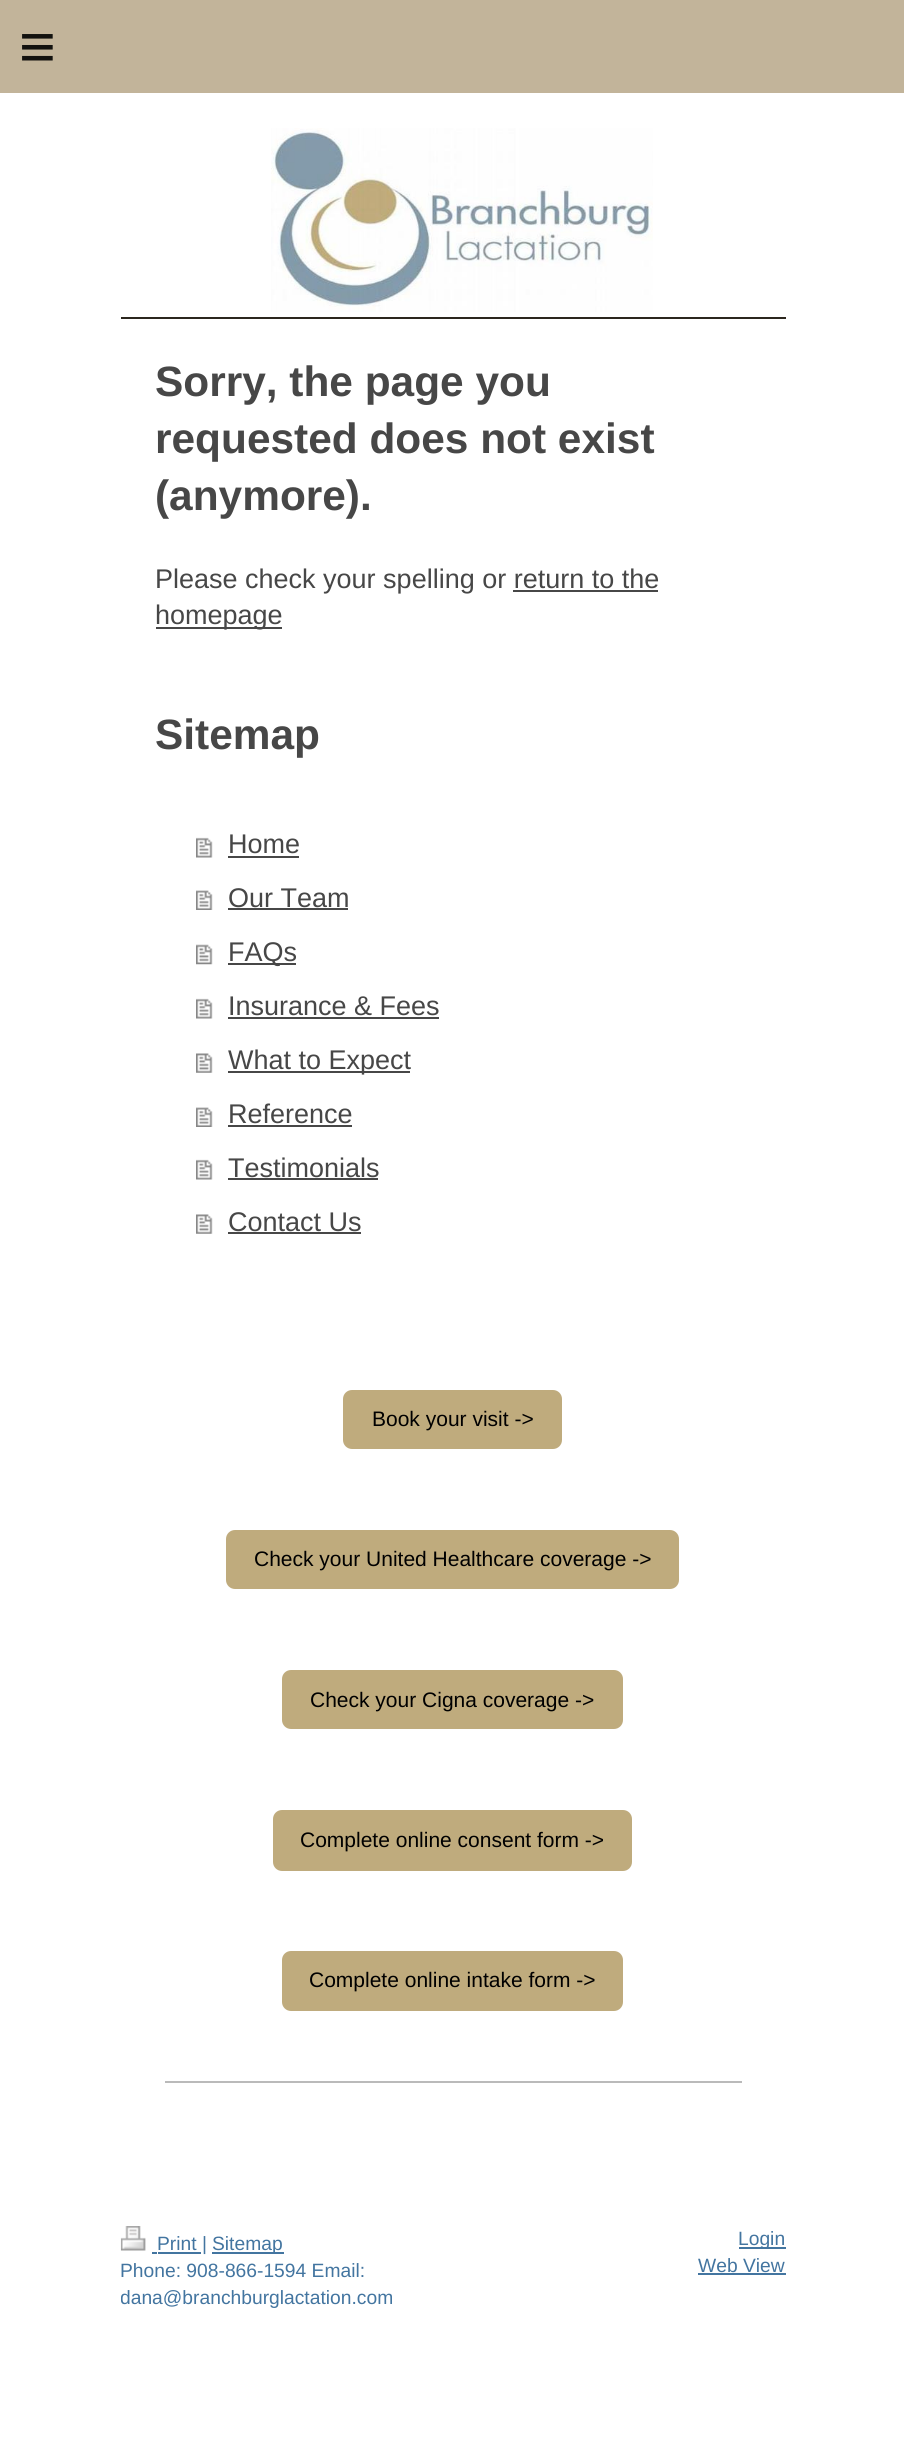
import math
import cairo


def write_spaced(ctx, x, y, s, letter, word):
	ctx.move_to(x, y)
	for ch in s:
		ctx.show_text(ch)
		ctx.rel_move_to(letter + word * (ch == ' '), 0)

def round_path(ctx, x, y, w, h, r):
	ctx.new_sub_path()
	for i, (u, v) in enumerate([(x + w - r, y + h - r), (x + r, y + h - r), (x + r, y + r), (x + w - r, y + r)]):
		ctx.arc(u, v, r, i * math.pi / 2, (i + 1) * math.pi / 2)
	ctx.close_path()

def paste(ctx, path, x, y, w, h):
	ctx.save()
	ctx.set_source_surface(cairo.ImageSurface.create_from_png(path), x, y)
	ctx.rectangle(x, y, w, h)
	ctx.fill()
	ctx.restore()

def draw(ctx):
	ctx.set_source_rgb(1, 1, 1)
	ctx.paint()
	ctx.set_source_rgb(0.761, 0.706, 0.604)
	ctx.rectangle(0, 0, 904, 93)
	ctx.fill()
	ctx.select_font_face('Liberation Sans')
	ctx.set_font_size(63)
	ctx.set_source_rgb(0.075, 0.071, 0.059)
	write_spaced(ctx, 19, 68, '≡', 18, 0)
	paste(ctx, 'media/1.png', 271, 128, 382, 184)
	ctx.set_source_rgb(0.169, 0.149, 0.118)
	ctx.rectangle(121, 317, 665, 2)
	ctx.fill()
	ctx.select_font_face('Liberation Sans', cairo.FONT_SLANT_NORMAL, cairo.FONT_WEIGHT_BOLD)
	ctx.set_font_size(42.4)
	ctx.set_source_rgb(0.278, 0.278, 0.278)
	for x, y, s in [
		(155, 396, 'Sorry, the page you'),
		(155, 453, 'requested does not exist'),
		(155, 510, '(anymore).'),
	]:
		ctx.move_to(x, y)
		ctx.show_text(s)
	ctx.select_font_face('Liberation Sans')
	ctx.set_font_size(27)
	ctx.move_to(155, 588)
	ctx.show_text('Please check your spelling or return to the')
	ctx.rectangle(156, 627, 126, 2)
	ctx.fill()
	ctx.move_to(155, 624)
	ctx.show_text('homepage')
	ctx.rectangle(513, 590, 145, 2)
	ctx.fill()
	ctx.select_font_face('Liberation Sans', cairo.FONT_SLANT_NORMAL, cairo.FONT_WEIGHT_BOLD)
	ctx.set_font_size(42.4)
	ctx.move_to(155, 749)
	ctx.show_text('Sitemap')
	paste(ctx, 'media/2.png', 196, 837, 17, 21)
	ctx.select_font_face('Liberation Sans')
	ctx.set_font_size(27)
	ctx.move_to(228, 853)
	ctx.show_text('Home')
	ctx.rectangle(228, 856, 71, 2)
	ctx.fill()
	paste(ctx, 'media/3.png', 196, 890, 17, 20)
	ctx.move_to(228, 907)
	ctx.show_text('Our Team')
	ctx.rectangle(228, 908, 120, 2)
	ctx.fill()
	paste(ctx, 'media/4.png', 196, 944, 17, 21)
	ctx.rectangle(228, 963, 68, 2)
	ctx.fill()
	ctx.move_to(228, 961)
	ctx.show_text('FAQs')
	paste(ctx, 'media/2.png', 196, 998, 17, 21)
	ctx.move_to(228, 1015)
	ctx.show_text('Insurance & Fees')
	ctx.rectangle(228, 1017, 211, 2)
	ctx.fill()
	paste(ctx, 'media/5.png', 196, 1053, 17, 20)
	ctx.rectangle(228, 1071, 182, 2)
	ctx.fill()
	ctx.move_to(228, 1069)
	ctx.show_text('What to Expect')
	paste(ctx, 'media/3.png', 196, 1107, 17, 20)
	ctx.move_to(228, 1123)
	ctx.show_text('Reference')
	ctx.rectangle(228, 1125, 124, 2)
	ctx.fill()
	paste(ctx, 'media/2.png', 196, 1159, 17, 21)
	ctx.move_to(228, 1177)
	ctx.show_text('Testimonials')
	ctx.rectangle(228, 1178, 150, 2)
	ctx.fill()
	paste(ctx, 'media/5.png', 196, 1214, 17, 20)
	ctx.move_to(228, 1231)
	ctx.show_text('Contact Us')
	ctx.rectangle(228, 1232, 133, 2)
	ctx.fill()
	ctx.set_source_rgb(0.749, 0.671, 0.49)
	round_path(ctx, 344, 1391, 217, 57, 8)
	ctx.fill_preserve()
	ctx.stroke()
	ctx.set_font_size(21)
	ctx.set_source_rgb(0, 0, 0)
	ctx.move_to(372, 1426)
	ctx.show_text('Book your visit ->')
	ctx.set_source_rgb(0.749, 0.671, 0.49)
	round_path(ctx, 227, 1531, 451, 57, 8)
	ctx.fill_preserve()
	ctx.stroke()
	ctx.set_source_rgb(0, 0, 0)
	ctx.move_to(254, 1566)
	ctx.show_text('Check your United Healthcare coverage ->')
	ctx.set_source_rgb(0.749, 0.671, 0.49)
	round_path(ctx, 283, 1671, 339, 57, 8)
	ctx.fill_preserve()
	ctx.stroke()
	ctx.set_source_rgb(0, 0, 0)
	ctx.move_to(310, 1707)
	ctx.show_text('Check your Cigna coverage ->')
	ctx.set_source_rgb(0.749, 0.671, 0.49)
	round_path(ctx, 274, 1811, 357, 59, 8)
	ctx.fill_preserve()
	ctx.stroke()
	ctx.set_source_rgb(0, 0, 0)
	ctx.move_to(300, 1847)
	ctx.show_text('Complete online consent form ->')
	ctx.set_source_rgb(0.749, 0.671, 0.49)
	round_path(ctx, 283, 1952, 339, 58, 8)
	ctx.fill_preserve()
	ctx.stroke()
	ctx.set_source_rgb(0, 0, 0)
	ctx.move_to(309, 1987)
	ctx.show_text('Complete online intake form ->')
	ctx.set_source_rgb(0.729, 0.729, 0.729)
	ctx.rectangle(165, 2081, 577, 2)
	ctx.fill()
	paste(ctx, 'media/6.png', 120, 2226, 26, 25)
	ctx.set_source_rgb(0.263, 0.459, 0.627)
	ctx.rectangle(158, 2252, 43, 2)
	ctx.fill()
	ctx.set_font_size(19.25)
	ctx.move_to(157, 2250)
	ctx.show_text('Print |')
	ctx.rectangle(152, 2252, 5, 2)
	ctx.fill()
	ctx.rectangle(212, 2252, 72, 2)
	ctx.fill()
	ctx.move_to(212, 2250)
	ctx.show_text('Sitemap')
	ctx.move_to(120, 2277)
	ctx.show_text('Phone: 908-866-1594 Email:')
	ctx.save()
	ctx.rectangle(121, 2226, 665, 86)
	ctx.clip()
	ctx.move_to(120, 2304)
	ctx.show_text('dana@branchburglactation.com')
	ctx.restore()
	ctx.rectangle(739, 2247, 47, 2)
	ctx.fill()
	ctx.move_to(738, 2245)
	ctx.show_text('Login')
	ctx.move_to(698, 2272)
	ctx.show_text('Web View')
	ctx.rectangle(698, 2273, 88, 2)
	ctx.fill()


surface = cairo.ImageSurface(cairo.FORMAT_RGB24, 904, 2464)
ctx = cairo.Context(surface)
options = cairo.FontOptions()
options.set_hint_metrics(cairo.HINT_METRICS_OFF)
options.set_hint_style(cairo.HINT_STYLE_NONE)
ctx.set_font_options(options)
ctx.set_miter_limit(4)
draw(ctx)
surface.write_to_png('image.png')
